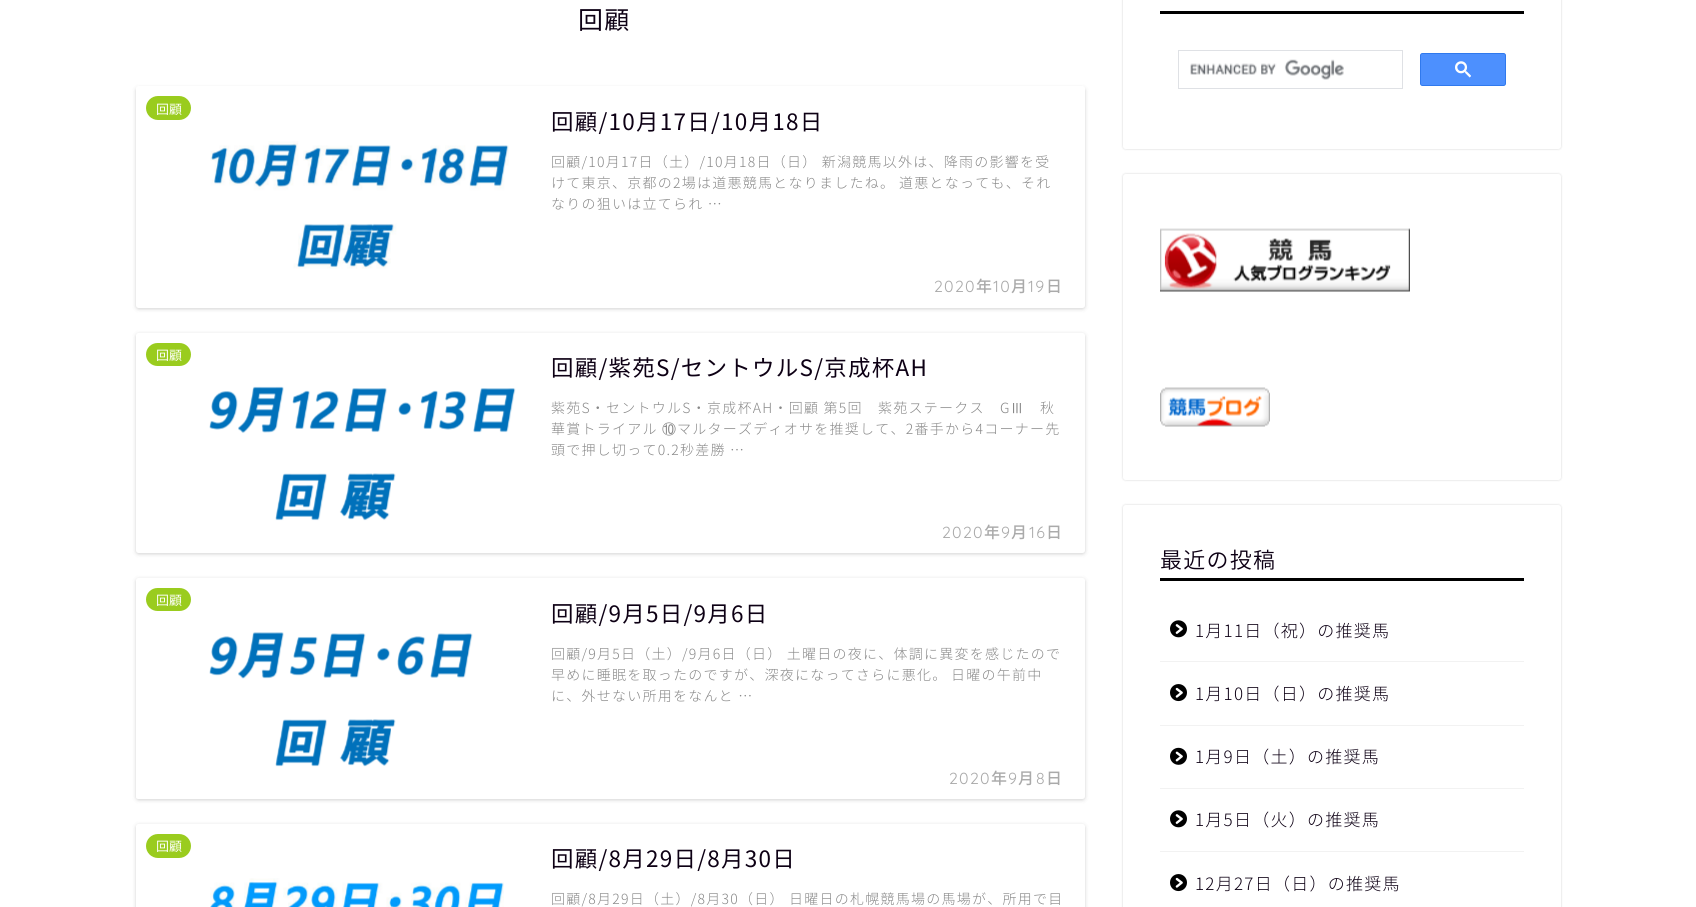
import math
import cairo


def write_spaced(ctx, x, y, s, letter, word):
	ctx.move_to(x, y)
	for ch in s:
		ctx.show_text(ch)
		ctx.rel_move_to(letter + word * (ch == ' '), 0)

def round_path(ctx, x, y, w, h, r):
	ctx.new_sub_path()
	for i, (u, v) in enumerate([(x + w - r, y + h - r), (x + r, y + h - r), (x + r, y + r), (x + w - r, y + r)]):
		ctx.arc(u, v, r, i * math.pi / 2, (i + 1) * math.pi / 2)
	ctx.close_path()

def blur_box(ctx, x, y, w, h, r, blur, alpha):
	ctx.push_group_with_content(cairo.CONTENT_ALPHA)
	ctx.set_operator(cairo.OPERATOR_SOURCE)
	for i in range(15, -16, -2):
		e = blur * i / 6
		if min(w, h) + 2 * e > 0:
			ctx.set_source_rgba(0, 0, 0, alpha * math.erfc((i - 1) / 8.5) / 2)
			round_path(ctx, x - e, y - e, w + 2 * e, h + 2 * e, max(0, min(r + e + blur * .6, min(w, h) / 2 + e)))
			ctx.fill()
	ctx.mask(ctx.pop_group())

def paste(ctx, path, x, y, w, h):
	ctx.save()
	ctx.set_source_surface(cairo.ImageSurface.create_from_png(path), x, y)
	ctx.rectangle(x, y, w, h)
	ctx.fill()
	ctx.restore()

def draw(ctx):
	ctx.set_source_rgb(1, 1, 1)
	ctx.paint()
	ctx.select_font_face('Noto Sans JP')
	ctx.set_font_size(25)
	ctx.set_source_rgb(0.051, 0, 0.082)
	write_spaced(ctx, 578, 29, '回顧', 1.25, 0)
	ctx.set_source_rgb(0, 0, 0)
	blur_box(ctx, 136, 88, 949, 221, 2.5, 2, 0.18)
	ctx.set_source_rgb(1, 1, 1)
	round_path(ctx, 136, 86, 949, 222, 2.5)
	ctx.fill()
	ctx.set_source_rgb(0.604, 0.8, 0.118)
	round_path(ctx, 146, 96, 45, 24, 12)
	ctx.fill()
	ctx.set_font_size(13)
	ctx.set_source_rgb(1, 1, 1)
	ctx.move_to(156, 114)
	ctx.show_text('回顧')
	paste(ctx, 'media/1.png', 210, 141, 299, 128)
	ctx.set_font_size(22.5)
	ctx.set_source_rgb(0.051, 0, 0.082)
	write_spaced(ctx, 551, 130, '回顧/10月17日/10月18日', 1.25, 0)
	ctx.select_font_face('Noto Sans JP Light')
	ctx.set_font_size(14)
	ctx.set_source_rgb(0.533, 0.533, 0.533)
	for x, y, s in [
		(551, 167, '回顧/10月17日（土）/10月18日（日） 新潟競馬以外は、降雨の影響を受'),
		(551, 188, 'けて東京、京都の2場は道悪競馬となりましたね。'),
		(899, 188, '道悪となっても、それ'),
		(551, 209, 'なりの狙いは立てられ …'),
	]:
		write_spaced(ctx, x, y, s, 1.25, 0)
	ctx.select_font_face('Quicksand Light')
	ctx.set_font_size(16)
	ctx.set_source_rgb(0.667, 0.667, 0.667)
	write_spaced(ctx, 934, 292, '2020', 1.25, 0)
	ctx.select_font_face('Noto Sans JP Medium')
	write_spaced(ctx, 976, 292, '年', 1.25, 0)
	ctx.select_font_face('Quicksand Light')
	write_spaced(ctx, 993, 292, '10', 1.25, 0)
	ctx.select_font_face('Noto Sans JP Medium')
	write_spaced(ctx, 1011, 292, '月', 1.25, 0)
	ctx.select_font_face('Quicksand Light')
	write_spaced(ctx, 1028, 292, '19', 1.25, 0)
	ctx.select_font_face('Noto Sans JP Medium')
	write_spaced(ctx, 1046, 292, '日', 1.25, 0)
	ctx.set_source_rgb(0, 0, 0)
	blur_box(ctx, 136, 334, 949, 220, 2.5, 2, 0.18)
	ctx.set_source_rgb(1, 1, 1)
	round_path(ctx, 136, 333, 949, 220, 2.5)
	ctx.fill()
	ctx.set_source_rgb(0.604, 0.8, 0.118)
	round_path(ctx, 146, 343, 45, 23, 11.5)
	ctx.fill()
	ctx.select_font_face('Noto Sans JP')
	ctx.set_font_size(13)
	ctx.set_source_rgb(1, 1, 1)
	ctx.move_to(156, 360)
	ctx.show_text('回顧')
	paste(ctx, 'media/2.png', 209, 386, 307, 135)
	ctx.set_font_size(22.5)
	ctx.set_source_rgb(0.051, 0, 0.082)
	write_spaced(ctx, 551, 376, '回顧/紫苑S/セントウルS/京成杯AH', 1.25, 0)
	ctx.select_font_face('Noto Sans JP Light')
	ctx.set_font_size(14)
	ctx.set_source_rgb(0.533, 0.533, 0.533)
	write_spaced(ctx, 551, 413, '紫苑S・セントウルS・京成杯AH・回顧 第5回　紫苑ステークス　G', 1.25, 0)
	ctx.select_font_face('WenQuanYi Zen Hei Medium')
	write_spaced(ctx, 1010, 413, 'Ⅲ', 1.25, 0)
	ctx.select_font_face('Noto Sans JP Light')
	write_spaced(ctx, 1040, 413, '秋', 1.25, 0)
	write_spaced(ctx, 551, 434, '華賞トライアル', 1.25, 0)
	ctx.select_font_face('WenQuanYi Zen Hei Medium')
	write_spaced(ctx, 662, 434, '⑩', 1.25, 0)
	ctx.select_font_face('Noto Sans JP Light')
	write_spaced(ctx, 677, 434, 'マルターズディオサを推奨して、2番手から4コーナー先', 1.25, 0)
	write_spaced(ctx, 551, 455, '頭で押し切って0.2秒差勝 …', 1.25, 0)
	ctx.select_font_face('Quicksand Light')
	ctx.set_font_size(16)
	ctx.set_source_rgb(0.667, 0.667, 0.667)
	write_spaced(ctx, 942, 538, '2020', 1.25, 0)
	ctx.select_font_face('Noto Sans JP Medium')
	write_spaced(ctx, 984, 538, '年', 1.25, 0)
	ctx.select_font_face('Quicksand Light')
	write_spaced(ctx, 1001, 538, '9', 1.25, 0)
	ctx.select_font_face('Noto Sans JP Medium')
	write_spaced(ctx, 1011, 538, '月', 1.25, 0)
	ctx.select_font_face('Quicksand Light')
	write_spaced(ctx, 1029, 538, '16', 1.25, 0)
	ctx.select_font_face('Noto Sans JP Medium')
	write_spaced(ctx, 1046, 538, '日', 1.25, 0)
	ctx.set_source_rgb(0, 0, 0)
	blur_box(ctx, 136, 579, 949, 221, 2.5, 2, 0.18)
	ctx.set_source_rgb(1, 1, 1)
	round_path(ctx, 136, 578, 949, 221, 2.5)
	ctx.fill()
	ctx.set_source_rgb(0.604, 0.8, 0.118)
	round_path(ctx, 146, 588, 45, 23, 11.5)
	ctx.fill()
	ctx.select_font_face('Noto Sans JP')
	ctx.set_font_size(13)
	ctx.set_source_rgb(1, 1, 1)
	ctx.move_to(156, 605)
	ctx.show_text('回顧')
	paste(ctx, 'media/3.png', 136, 632, 337, 167)
	ctx.set_font_size(22.5)
	ctx.set_source_rgb(0.051, 0, 0.082)
	write_spaced(ctx, 551, 622, '回顧/9月5日/9月6日', 1.25, 0)
	ctx.select_font_face('Noto Sans JP Light')
	ctx.set_font_size(14)
	ctx.set_source_rgb(0.533, 0.533, 0.533)
	for x, y, s in [
		(551, 659, '回顧/9月5日（土）/9月6日（日） 土曜日の夜に、体調に異変を感じたので'),
		(551, 680, '早めに睡眠を取ったのですが、深夜になってさらに悪化。'),
		(951, 680, '日曜の午前中'),
		(551, 701, 'に、外せない所用をなんと …'),
	]:
		write_spaced(ctx, x, y, s, 1.25, 0)
	ctx.select_font_face('Quicksand Light')
	ctx.set_font_size(16)
	ctx.set_source_rgb(0.667, 0.667, 0.667)
	write_spaced(ctx, 949, 784, '2020', 1.25, 0)
	ctx.select_font_face('Noto Sans JP Medium')
	write_spaced(ctx, 991, 784, '年', 1.25, 0)
	ctx.select_font_face('Quicksand Light')
	write_spaced(ctx, 1008, 784, '9', 1.25, 0)
	ctx.select_font_face('Noto Sans JP Medium')
	write_spaced(ctx, 1018, 784, '月', 1.25, 0)
	ctx.select_font_face('Quicksand Light')
	write_spaced(ctx, 1036, 784, '8', 1.25, 0)
	ctx.select_font_face('Noto Sans JP Medium')
	write_spaced(ctx, 1046, 784, '日', 1.25, 0)
	ctx.set_source_rgb(0, 0, 0)
	blur_box(ctx, 136, 825, 949, 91, 2.5, 2, 0.18)
	ctx.set_source_rgb(1, 1, 1)
	round_path(ctx, 136, 824, 949, 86, 2.5)
	ctx.fill()
	ctx.set_source_rgb(0.604, 0.8, 0.118)
	round_path(ctx, 146, 834, 45, 24, 12)
	ctx.fill()
	ctx.select_font_face('Noto Sans JP')
	ctx.set_font_size(13)
	ctx.set_source_rgb(1, 1, 1)
	ctx.move_to(156, 851)
	ctx.show_text('回顧')
	paste(ctx, 'media/4.png', 210, 878, 294, 29)
	ctx.set_font_size(22.5)
	ctx.set_source_rgb(0.051, 0, 0.082)
	write_spaced(ctx, 551, 867, '回顧/8月29日/8月30日', 1.25, 0)
	ctx.select_font_face('Noto Sans JP Light')
	ctx.set_font_size(14)
	ctx.set_source_rgb(0.533, 0.533, 0.533)
	write_spaced(ctx, 551, 904, '回顧/8月29日（土）/8月30（日） 日曜日の札幌競馬場の馬場が、所用で目', 1.25, 0)
	ctx.set_source_rgb(0, 0, 0)
	blur_box(ctx, 1123, -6, 438, 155, 2.5, 1, 0.18)
	ctx.set_source_rgb(1, 1, 1)
	round_path(ctx, 1123, -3, 438, 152, 2.5)
	ctx.fill()
	ctx.set_source_rgb(0, 0, 0)
	ctx.rectangle(1160, 11, 364, 3)
	ctx.fill()
	ctx.rectangle(1178.5, 50.5, 224, 38)
	ctx.set_source_rgb(0.875, 0.882, 0.898)
	ctx.set_line_width(1)
	ctx.stroke()
	paste(ctx, 'media/5.png', 1190, 59, 154, 21)
	ctx.set_source_rgb(0.302, 0.565, 0.996)
	round_path(ctx, 1420.5, 53.5, 85, 32, 2)
	ctx.fill_preserve()
	ctx.set_source_rgb(0.188, 0.475, 0.929)
	ctx.stroke()
	paste(ctx, 'media/6.png', 1455, 61, 16, 17)
	ctx.set_source_rgb(0, 0, 0)
	blur_box(ctx, 1123, 174, 438, 306, 2.5, 1, 0.18)
	ctx.set_source_rgb(1, 1, 1)
	round_path(ctx, 1123, 174, 438, 306, 2.5)
	ctx.fill()
	paste(ctx, 'media/7.png', 1160, 228, 250, 64)
	paste(ctx, 'media/8.png', 1160, 387, 110, 40)
	ctx.set_source_rgb(0, 0, 0)
	blur_box(ctx, 1123, 505, 438, 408, 2.5, 1, 0.18)
	ctx.set_source_rgb(1, 1, 1)
	round_path(ctx, 1123, 505, 438, 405, 2.5)
	ctx.fill()
	ctx.set_source_rgb(0, 0, 0)
	ctx.rectangle(1160, 578, 364, 3)
	ctx.fill()
	ctx.select_font_face('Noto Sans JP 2 Light')
	ctx.set_font_size(22)
	ctx.set_source_rgb(0.051, 0, 0.082)
	write_spaced(ctx, 1160, 568, '最近の投稿', 1.25, 0)
	ctx.set_source_rgb(0.949, 0.949, 0.949)
	ctx.rectangle(1160, 661, 364, 1)
	ctx.fill()
	paste(ctx, 'media/9.png', 1170, 620, 17, 18)
	ctx.select_font_face('Noto Sans JP Light')
	ctx.set_font_size(17)
	ctx.set_source_rgb(0.051, 0, 0.082)
	write_spaced(ctx, 1195, 637, '1月11日（祝）の推奨馬', 1.25, 0)
	ctx.set_source_rgb(0.949, 0.949, 0.949)
	ctx.rectangle(1160, 725, 364, 1)
	ctx.fill()
	paste(ctx, 'media/10.png', 1170, 684, 17, 18)
	ctx.set_source_rgb(0.051, 0, 0.082)
	write_spaced(ctx, 1195, 700, '1月10日（日）の推奨馬', 1.25, 0)
	ctx.set_source_rgb(0.949, 0.949, 0.949)
	ctx.rectangle(1160, 788, 364, 1)
	ctx.fill()
	paste(ctx, 'media/11.png', 1170, 747, 17, 18)
	ctx.set_source_rgb(0.051, 0, 0.082)
	write_spaced(ctx, 1195, 763, '1月9日（土）の推奨馬', 1.25, 0)
	ctx.set_source_rgb(0.949, 0.949, 0.949)
	ctx.rectangle(1160, 851, 364, 1)
	ctx.fill()
	paste(ctx, 'media/9.png', 1170, 810, 17, 18)
	ctx.set_source_rgb(0.051, 0, 0.082)
	write_spaced(ctx, 1195, 826, '1月5日（火）の推奨馬', 1.25, 0)
	paste(ctx, 'media/10.png', 1170, 874, 17, 18)
	write_spaced(ctx, 1195, 890, '12月27日（日）の推奨馬', 1.25, 0)


surface = cairo.ImageSurface(cairo.FORMAT_RGB24, 1696, 907)
ctx = cairo.Context(surface)
options = cairo.FontOptions()
options.set_hint_metrics(cairo.HINT_METRICS_OFF)
options.set_hint_style(cairo.HINT_STYLE_NONE)
ctx.set_font_options(options)
ctx.set_miter_limit(4)
draw(ctx)
surface.write_to_png('image.png')
